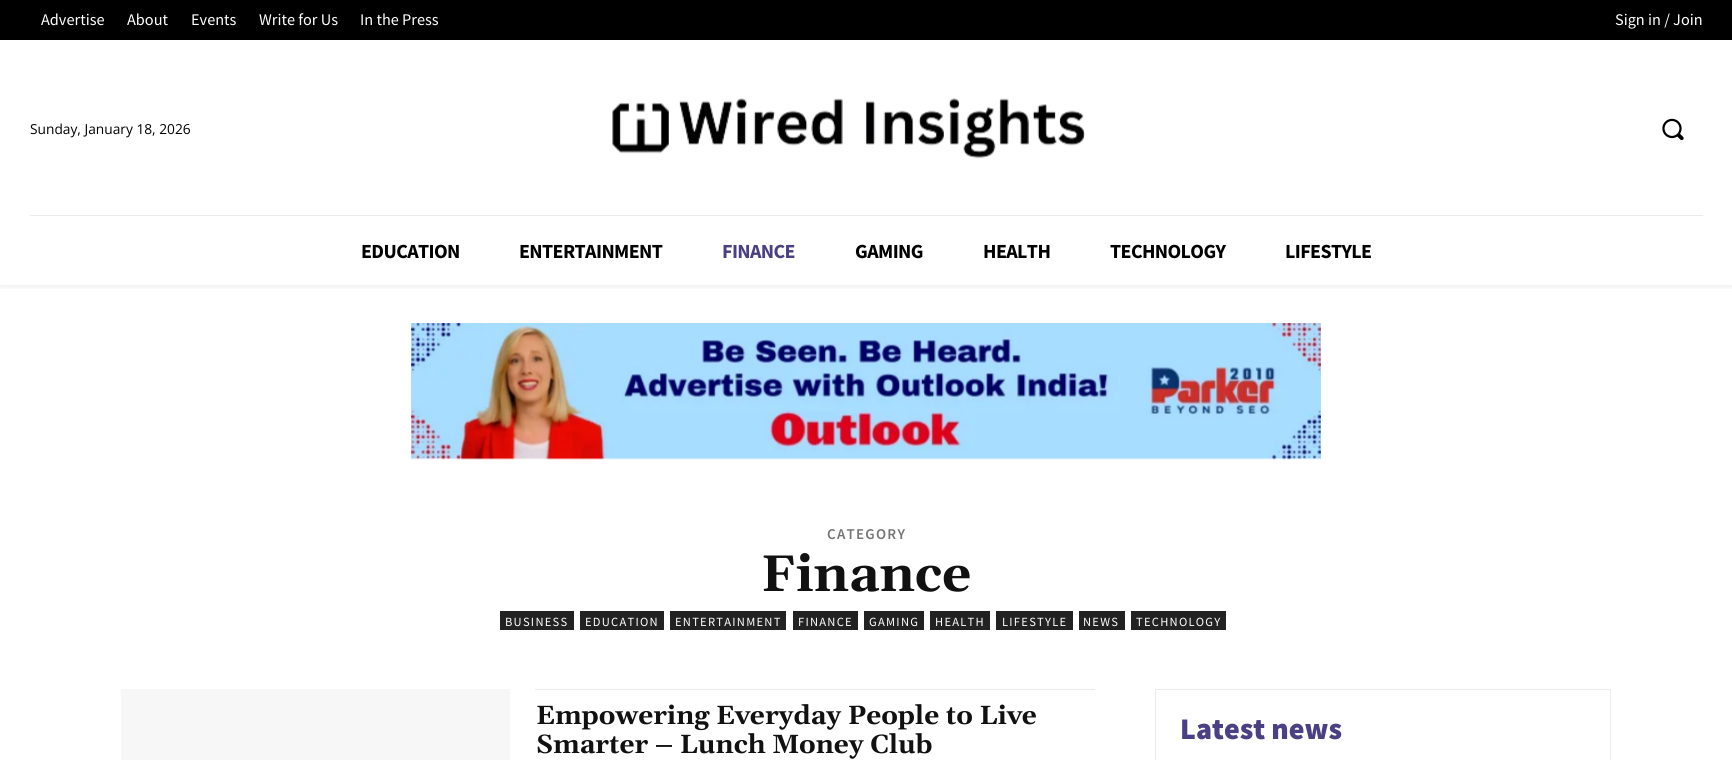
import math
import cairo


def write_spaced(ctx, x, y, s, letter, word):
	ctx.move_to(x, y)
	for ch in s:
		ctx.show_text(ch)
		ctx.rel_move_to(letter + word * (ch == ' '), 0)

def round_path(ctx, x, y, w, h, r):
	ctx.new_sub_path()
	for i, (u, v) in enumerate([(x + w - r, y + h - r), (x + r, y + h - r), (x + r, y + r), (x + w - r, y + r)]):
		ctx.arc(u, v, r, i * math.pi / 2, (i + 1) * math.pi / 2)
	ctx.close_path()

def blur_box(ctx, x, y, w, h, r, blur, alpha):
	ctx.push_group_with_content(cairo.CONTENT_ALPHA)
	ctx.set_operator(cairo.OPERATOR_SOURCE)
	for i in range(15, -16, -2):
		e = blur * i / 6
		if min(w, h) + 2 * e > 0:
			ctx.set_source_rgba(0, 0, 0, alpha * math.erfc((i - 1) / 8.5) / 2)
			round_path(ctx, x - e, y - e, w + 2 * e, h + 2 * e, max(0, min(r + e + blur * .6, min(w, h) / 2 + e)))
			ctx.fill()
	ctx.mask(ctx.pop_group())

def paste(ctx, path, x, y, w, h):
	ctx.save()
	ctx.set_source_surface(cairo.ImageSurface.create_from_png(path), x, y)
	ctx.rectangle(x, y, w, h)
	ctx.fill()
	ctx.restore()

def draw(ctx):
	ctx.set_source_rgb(1, 1, 1)
	ctx.paint()
	ctx.set_source_rgb(0, 0, 0)
	ctx.rectangle(0, 0, 1732, 40)
	ctx.fill()
	ctx.select_font_face('Source Sans Pro')
	ctx.set_font_size(16.25)
	ctx.set_source_rgb(1, 1, 1)
	for x, y, s in [
		(41, 25, 'Advertise'),
		(127, 25, 'About'),
		(191, 25, 'Events'),
		(259, 25, 'Write for Us'),
		(360, 25, 'In the Press'),
		(1615, 25, 'Sign in / Join'),
	]:
		ctx.move_to(x, y)
		ctx.show_text(s)
	ctx.select_font_face('Open Sans')
	ctx.set_font_size(13.75)
	ctx.set_source_rgb(0, 0, 0)
	ctx.move_to(30, 134)
	ctx.show_text('Sunday, January 18, 2026')
	paste(ctx, 'media/1.png', 612, 98, 473, 61)
	paste(ctx, 'media/2.png', 1662, 118, 22, 23)
	ctx.set_source_rgb(0.918, 0.918, 0.918)
	ctx.rectangle(30, 215, 1673, 1)
	ctx.fill()
	ctx.save()
	ctx.rectangle(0, 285, 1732, 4)
	ctx.clip()
	ctx.set_source_rgb(0, 0, 0)
	blur_box(ctx, 0, 180, 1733, 108, 0, 2.5, 0.06)
	ctx.restore()
	ctx.select_font_face('Source Sans Pro', cairo.FONT_SLANT_NORMAL, cairo.FONT_WEIGHT_BOLD)
	ctx.set_font_size(20)
	ctx.set_source_rgb(0, 0, 0)
	write_spaced(ctx, 361, 258, 'EDUCATION', -0.6, 0)
	write_spaced(ctx, 519, 258, 'ENTERTAINMENT', -0.6, 0)
	ctx.set_source_rgb(0.298, 0.251, 0.518)
	write_spaced(ctx, 722, 258, 'FINANCE', -0.6, 0)
	ctx.set_source_rgb(0, 0, 0)
	for x, y, s in [
		(855, 258, 'GAMING'),
		(983, 258, 'HEALTH'),
		(1110, 258, 'TECHNOLOGY'),
		(1285, 258, 'LIFESTYLE'),
	]:
		write_spaced(ctx, x, y, s, -0.6, 0)
	paste(ctx, 'media/3.png', 411, 323, 910, 137)
	ctx.select_font_face('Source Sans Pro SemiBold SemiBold')
	ctx.set_font_size(15)
	ctx.set_source_rgb(0.459, 0.459, 0.459)
	write_spaced(ctx, 827, 539, 'CATEGORY', 1.25, 0)
	ctx.select_font_face('Gelasio', cairo.FONT_SLANT_NORMAL, cairo.FONT_WEIGHT_BOLD)
	ctx.set_font_size(51.25)
	ctx.set_source_rgb(0.067, 0.067, 0.067)
	ctx.move_to(761, 591)
	ctx.show_text('Finance')
	ctx.set_source_rgb(0.133, 0.133, 0.133)
	ctx.rectangle(500, 611, 74, 19)
	ctx.fill()
	ctx.select_font_face('Source Sans Pro')
	ctx.set_font_size(12.5)
	ctx.set_source_rgb(1, 1, 1)
	write_spaced(ctx, 505, 626, 'BUSINESS', 1.25, 0)
	ctx.set_source_rgb(0.133, 0.133, 0.133)
	ctx.rectangle(580, 611, 84, 19)
	ctx.fill()
	ctx.set_source_rgb(1, 1, 1)
	write_spaced(ctx, 585, 626, 'EDUCATION', 1.25, 0)
	ctx.set_source_rgb(0.133, 0.133, 0.133)
	ctx.rectangle(670, 611, 116, 19)
	ctx.fill()
	ctx.set_source_rgb(1, 1, 1)
	write_spaced(ctx, 675, 626, 'ENTERTAINMENT', 1.25, 0)
	ctx.set_source_rgb(0.133, 0.133, 0.133)
	ctx.rectangle(793, 611, 65, 19)
	ctx.fill()
	ctx.set_source_rgb(1, 1, 1)
	write_spaced(ctx, 798, 626, 'FINANCE', 1.25, 0)
	ctx.set_source_rgb(0.133, 0.133, 0.133)
	ctx.rectangle(864, 611, 60, 19)
	ctx.fill()
	ctx.set_source_rgb(1, 1, 1)
	write_spaced(ctx, 869, 626, 'GAMING', 1.25, 0)
	ctx.set_source_rgb(0.133, 0.133, 0.133)
	ctx.rectangle(930, 611, 60, 19)
	ctx.fill()
	ctx.set_source_rgb(1, 1, 1)
	write_spaced(ctx, 935, 626, 'HEALTH', 1.25, 0)
	ctx.set_source_rgb(0.133, 0.133, 0.133)
	ctx.rectangle(996, 611, 77, 19)
	ctx.fill()
	ctx.set_source_rgb(1, 1, 1)
	write_spaced(ctx, 1002, 626, 'LIFESTYLE', 1.25, 0)
	ctx.set_source_rgb(0.133, 0.133, 0.133)
	ctx.rectangle(1079, 611, 46, 19)
	ctx.fill()
	ctx.set_source_rgb(1, 1, 1)
	write_spaced(ctx, 1083, 626, 'NEWS', 1.25, 0)
	ctx.set_source_rgb(0.133, 0.133, 0.133)
	ctx.rectangle(1131, 611, 95, 19)
	ctx.fill()
	ctx.set_source_rgb(1, 1, 1)
	write_spaced(ctx, 1136, 626, 'TECHNOLOGY', 1.25, 0)
	ctx.set_source_rgb(0.965, 0.965, 0.965)
	ctx.rectangle(121, 689, 389, 71)
	ctx.fill()
	ctx.set_source_rgb(0.918, 0.918, 0.918)
	ctx.rectangle(535, 689, 560, 1)
	ctx.fill()
	ctx.select_font_face('Gelasio', cairo.FONT_SLANT_NORMAL, cairo.FONT_WEIGHT_BOLD)
	ctx.set_font_size(26.25)
	ctx.set_source_rgb(0.067, 0.067, 0.067)
	ctx.move_to(536, 724)
	ctx.show_text('Empowering Everyday People to Live')
	ctx.move_to(536, 753)
	ctx.show_text('Smarter – Lunch Money Club')
	ctx.rectangle(1155.5, 689.5, 455, 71)
	ctx.set_source_rgb(0.918, 0.918, 0.918)
	ctx.set_line_width(1)
	ctx.stroke()
	ctx.select_font_face('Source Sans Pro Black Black')
	ctx.set_font_size(30)
	ctx.set_source_rgb(0.298, 0.251, 0.518)
	ctx.move_to(1180, 739)
	ctx.show_text('Latest news')


surface = cairo.ImageSurface(cairo.FORMAT_RGB24, 1732, 760)
ctx = cairo.Context(surface)
options = cairo.FontOptions()
options.set_hint_metrics(cairo.HINT_METRICS_OFF)
options.set_hint_style(cairo.HINT_STYLE_NONE)
ctx.set_font_options(options)
ctx.set_miter_limit(4)
draw(ctx)
surface.write_to_png('image.png')
